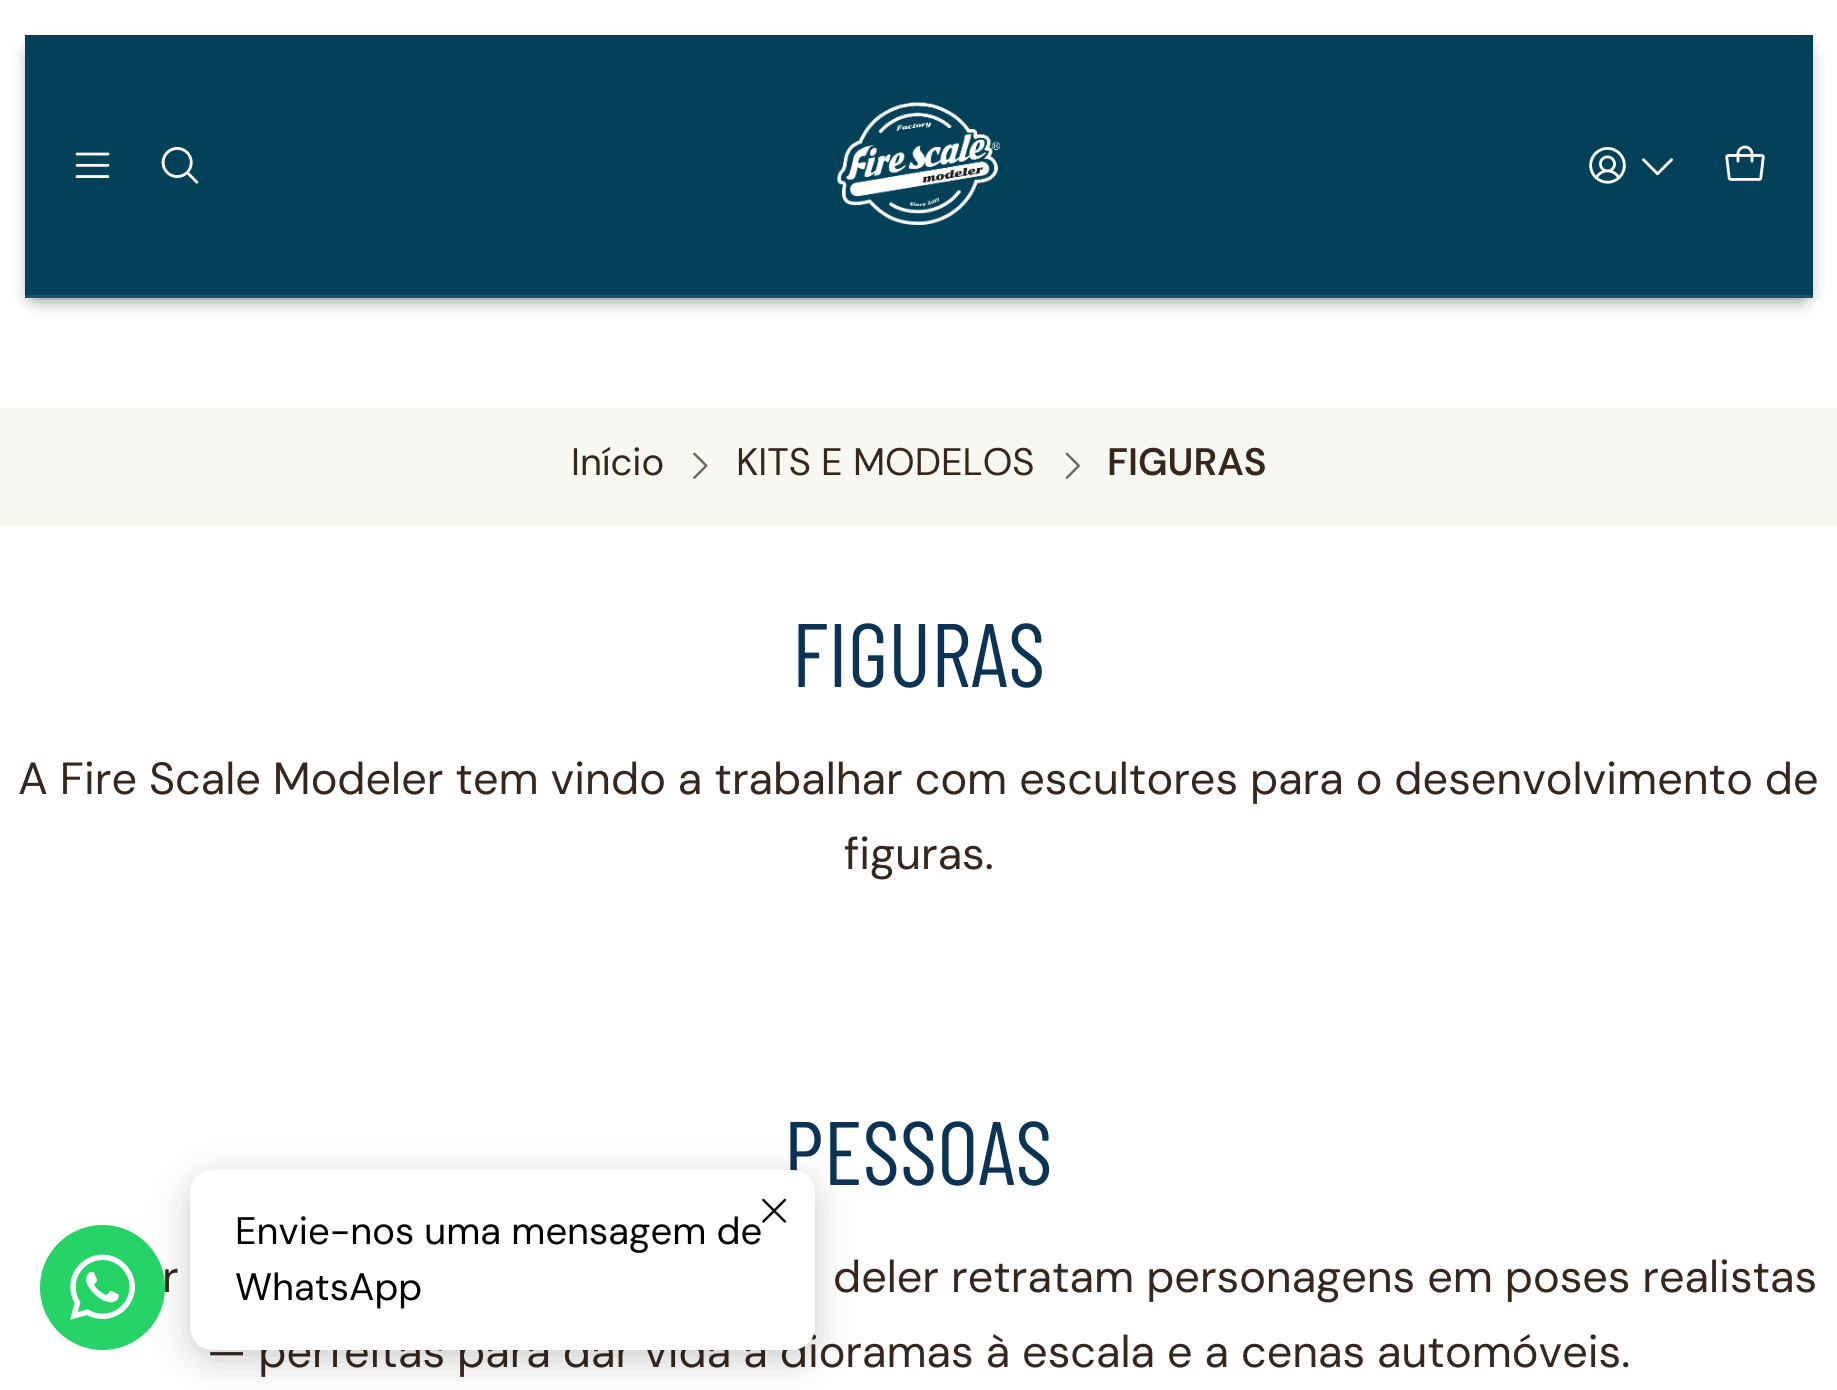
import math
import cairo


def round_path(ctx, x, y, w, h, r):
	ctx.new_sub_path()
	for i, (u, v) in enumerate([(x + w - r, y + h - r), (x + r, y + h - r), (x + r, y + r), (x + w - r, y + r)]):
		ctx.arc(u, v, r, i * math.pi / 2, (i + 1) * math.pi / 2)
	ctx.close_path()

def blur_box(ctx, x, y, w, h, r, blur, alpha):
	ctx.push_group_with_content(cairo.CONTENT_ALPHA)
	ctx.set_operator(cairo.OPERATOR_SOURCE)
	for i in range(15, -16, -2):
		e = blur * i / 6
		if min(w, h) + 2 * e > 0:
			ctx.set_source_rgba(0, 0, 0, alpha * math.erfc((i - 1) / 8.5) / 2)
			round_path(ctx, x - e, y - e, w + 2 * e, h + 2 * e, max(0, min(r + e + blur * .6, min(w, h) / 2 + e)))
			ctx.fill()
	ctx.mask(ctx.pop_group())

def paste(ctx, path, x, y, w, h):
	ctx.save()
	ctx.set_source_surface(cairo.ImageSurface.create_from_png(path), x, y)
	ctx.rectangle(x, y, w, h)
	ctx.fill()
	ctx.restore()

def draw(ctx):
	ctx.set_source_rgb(1, 1, 1)
	ctx.paint()
	ctx.set_source_rgb(0, 0, 0)
	blur_box(ctx, 35, 53, 1768, 242, 0, 10, 0.74)
	ctx.set_source_rgb(0.008, 0.255, 0.341)
	ctx.rectangle(25, 35, 1788, 260)
	ctx.fill()
	ctx.set_source_rgb(0.106, 0.329, 0.408)
	ctx.rectangle(25, 295, 1788, 3)
	ctx.fill()
	paste(ctx, 'media/1.png', 75, 152, 35, 26)
	paste(ctx, 'media/2.png', 161, 147, 38, 37)
	paste(ctx, 'media/3.png', 837, 101, 163, 124)
	paste(ctx, 'media/4.png', 1589, 147, 37, 37)
	paste(ctx, 'media/5.png', 1642, 158, 31, 18)
	paste(ctx, 'media/6.png', 1725, 145, 40, 36)
	ctx.set_source_rgb(0.969, 0.969, 0.949)
	ctx.rectangle(0, 408, 1837, 117)
	ctx.fill()
	ctx.select_font_face('DM Sans')
	ctx.set_font_size(38.25)
	ctx.set_source_rgb(0.208, 0.153, 0.114)
	ctx.move_to(571, 475)
	ctx.show_text('Início')
	paste(ctx, 'media/7.png', 693, 452, 15, 27)
	ctx.move_to(736, 475)
	ctx.show_text('KITS E MODELOS')
	paste(ctx, 'media/8.png', 1065, 452, 15, 27)
	ctx.select_font_face('DM Sans SemiBold')
	ctx.move_to(1107, 475)
	ctx.show_text('FIGURAS')
	ctx.select_font_face('Barlow Condensed')
	ctx.set_font_size(90)
	ctx.set_source_rgb(0.047, 0.2, 0.325)
	ctx.move_to(792, 687)
	ctx.show_text('FIGURAS')
	ctx.select_font_face('DM Sans')
	ctx.set_font_size(45)
	ctx.set_source_rgb(0.208, 0.153, 0.114)
	ctx.move_to(18, 794)
	ctx.show_text('A Fire Scale Modeler tem vindo a trabalhar com escultores para o desenvolvimento de')
	ctx.move_to(844, 869)
	ctx.show_text('figuras.')
	ctx.select_font_face('Barlow Condensed')
	ctx.set_font_size(90)
	ctx.set_source_rgb(0.047, 0.2, 0.325)
	ctx.move_to(784, 1185)
	ctx.show_text('PESSOAS')
	ctx.select_font_face('DM Sans')
	ctx.set_font_size(45)
	ctx.set_source_rgb(0.208, 0.153, 0.114)
	for x, y, s in [
		(162, 1292, 'r'),
		(833, 1292, 'deler retratam personagens em poses realistas'),
		(207, 1367, '— perfeitas para dar vida a dioramas à escala e a cenas automóveis.'),
	]:
		ctx.move_to(x, y)
		ctx.show_text(s)
	ctx.set_source_rgb(0, 0, 0)
	blur_box(ctx, 190, 1180, 625, 180, 23, 19, 0.2)
	ctx.set_source_rgb(0.145, 0.827, 0.4)
	ctx.arc(102.5, 1287.5, 62.5, 0, 2 * math.pi)
	ctx.fill()
	paste(ctx, 'media/9.png', 70, 1254, 65, 66)
	ctx.set_source_rgb(1, 1, 1)
	round_path(ctx, 190, 1170, 625, 180, 23)
	ctx.fill()
	paste(ctx, 'media/10.png', 762, 1198, 25, 25)
	ctx.set_font_size(38.25)
	ctx.set_source_rgb(0, 0, 0)
	ctx.move_to(235, 1244)
	ctx.show_text('Envie-nos uma mensagem de')
	ctx.move_to(235, 1300)
	ctx.show_text('WhatsApp')


surface = cairo.ImageSurface(cairo.FORMAT_RGB24, 1837, 1390)
ctx = cairo.Context(surface)
options = cairo.FontOptions()
options.set_hint_metrics(cairo.HINT_METRICS_OFF)
options.set_hint_style(cairo.HINT_STYLE_NONE)
ctx.set_font_options(options)
ctx.set_miter_limit(4)
draw(ctx)
surface.write_to_png('image.png')
